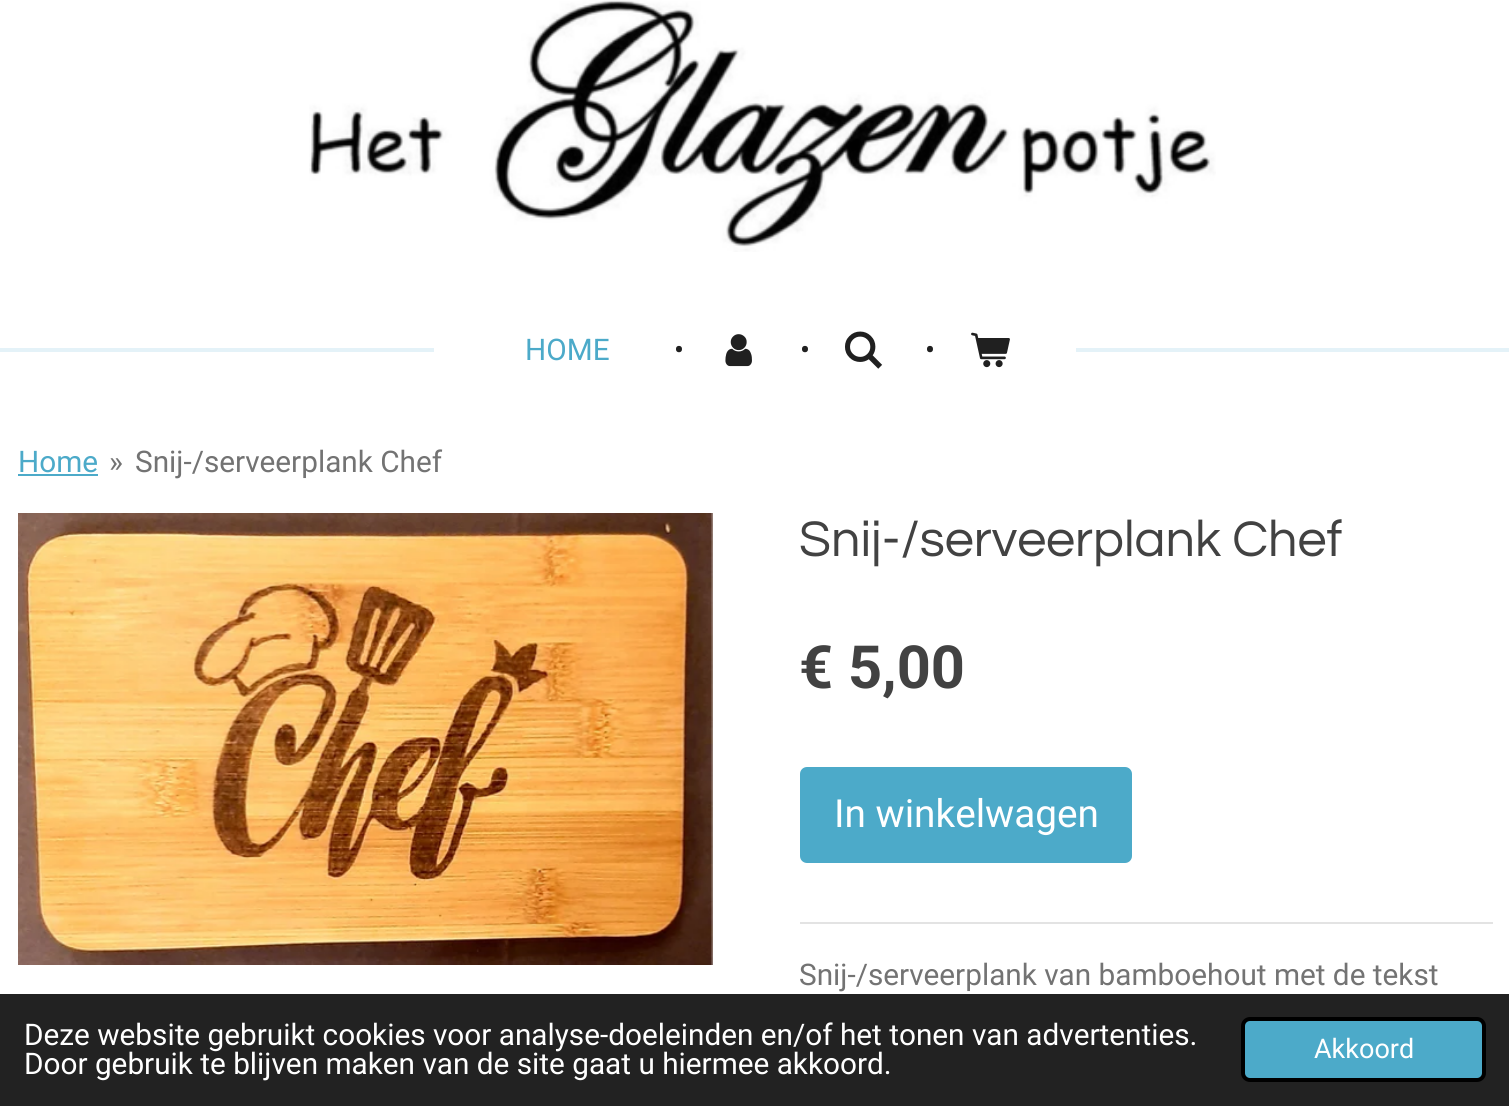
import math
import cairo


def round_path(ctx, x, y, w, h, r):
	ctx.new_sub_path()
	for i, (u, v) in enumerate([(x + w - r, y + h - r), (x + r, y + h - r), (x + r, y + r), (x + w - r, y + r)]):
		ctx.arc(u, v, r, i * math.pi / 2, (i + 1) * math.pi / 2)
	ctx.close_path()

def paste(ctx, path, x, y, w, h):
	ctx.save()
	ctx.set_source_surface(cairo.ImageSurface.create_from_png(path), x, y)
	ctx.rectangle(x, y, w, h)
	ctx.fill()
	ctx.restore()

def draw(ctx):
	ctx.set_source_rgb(1, 1, 1)
	ctx.paint()
	paste(ctx, 'media/1.png', 309, 0, 907, 252)
	ctx.set_source_rgb(0.894, 0.949, 0.969)
	ctx.rectangle(0, 348, 434, 4)
	ctx.fill()
	ctx.select_font_face('Roboto')
	ctx.set_font_size(29.75)
	ctx.set_source_rgb(0.298, 0.667, 0.788)
	ctx.move_to(525, 360)
	ctx.show_text('HOME')
	ctx.set_source_rgb(0.125, 0.125, 0.125)
	ctx.move_to(674, 360)
	ctx.show_text('•')
	paste(ctx, 'media/2.png', 725, 334, 27, 33)
	ctx.move_to(800, 360)
	ctx.show_text('•')
	paste(ctx, 'media/3.png', 845, 331, 38, 38)
	ctx.move_to(925, 360)
	ctx.show_text('•')
	paste(ctx, 'media/4.png', 971, 332, 39, 36)
	ctx.set_source_rgb(0.894, 0.949, 0.969)
	ctx.rectangle(1076, 348, 433, 4)
	ctx.fill()
	ctx.set_source_rgb(0.298, 0.667, 0.788)
	ctx.move_to(18, 472)
	ctx.show_text('Home')
	ctx.rectangle(18, 474, 80, 2)
	ctx.fill()
	ctx.set_source_rgb(0.451, 0.451, 0.451)
	ctx.move_to(109, 472)
	ctx.show_text('»')
	ctx.move_to(135, 472)
	ctx.show_text('Snij-/serveerplank Chef')
	paste(ctx, 'media/5.png', 18, 513, 695, 452)
	ctx.select_font_face('Questrial')
	ctx.set_font_size(52)
	ctx.set_source_rgb(0.259, 0.259, 0.259)
	ctx.move_to(799, 556)
	ctx.show_text('Snij-/serveerplank Chef')
	ctx.select_font_face('Roboto', cairo.FONT_SLANT_NORMAL, cairo.FONT_WEIGHT_BOLD)
	ctx.set_font_size(59.5)
	ctx.move_to(799, 688)
	ctx.show_text('€ 5,00')
	ctx.set_source_rgb(0.298, 0.667, 0.788)
	round_path(ctx, 800, 767, 332, 96, 7)
	ctx.fill()
	ctx.select_font_face('Roboto')
	ctx.set_font_size(38.75)
	ctx.set_source_rgb(1, 1, 1)
	ctx.move_to(834, 827)
	ctx.show_text('In winkelwagen')
	ctx.set_source_rgb(0.89, 0.89, 0.89)
	ctx.rectangle(800, 922, 693, 2)
	ctx.fill()
	ctx.set_font_size(29.75)
	ctx.set_source_rgb(0.451, 0.451, 0.451)
	ctx.move_to(799, 985)
	ctx.show_text('Snij-/serveerplank van bamboehout met de tekst')
	ctx.set_source_rgb(0.133, 0.133, 0.133)
	ctx.rectangle(0, 994, 1509, 112)
	ctx.fill()
	ctx.set_source_rgb(1, 1, 1)
	ctx.move_to(24, 1045)
	ctx.show_text('Deze website gebruikt cookies voor analyse-doeleinden en/of het tonen van advertenties.')
	ctx.move_to(24, 1074)
	ctx.show_text('Door gebruik te blijven maken van de site gaat u hiermee akkoord.')
	ctx.set_source_rgb(0.298, 0.667, 0.788)
	round_path(ctx, 1243, 1019, 241, 61, 7)
	ctx.fill_preserve()
	ctx.set_source_rgb(0, 0, 0)
	ctx.set_line_width(4)
	ctx.stroke()
	ctx.set_font_size(27)
	ctx.set_source_rgb(1, 1, 1)
	ctx.move_to(1314, 1058)
	ctx.show_text('Akkoord')


surface = cairo.ImageSurface(cairo.FORMAT_RGB24, 1509, 1106)
ctx = cairo.Context(surface)
options = cairo.FontOptions()
options.set_hint_metrics(cairo.HINT_METRICS_OFF)
options.set_hint_style(cairo.HINT_STYLE_NONE)
ctx.set_font_options(options)
ctx.set_miter_limit(4)
draw(ctx)
surface.write_to_png('image.png')
